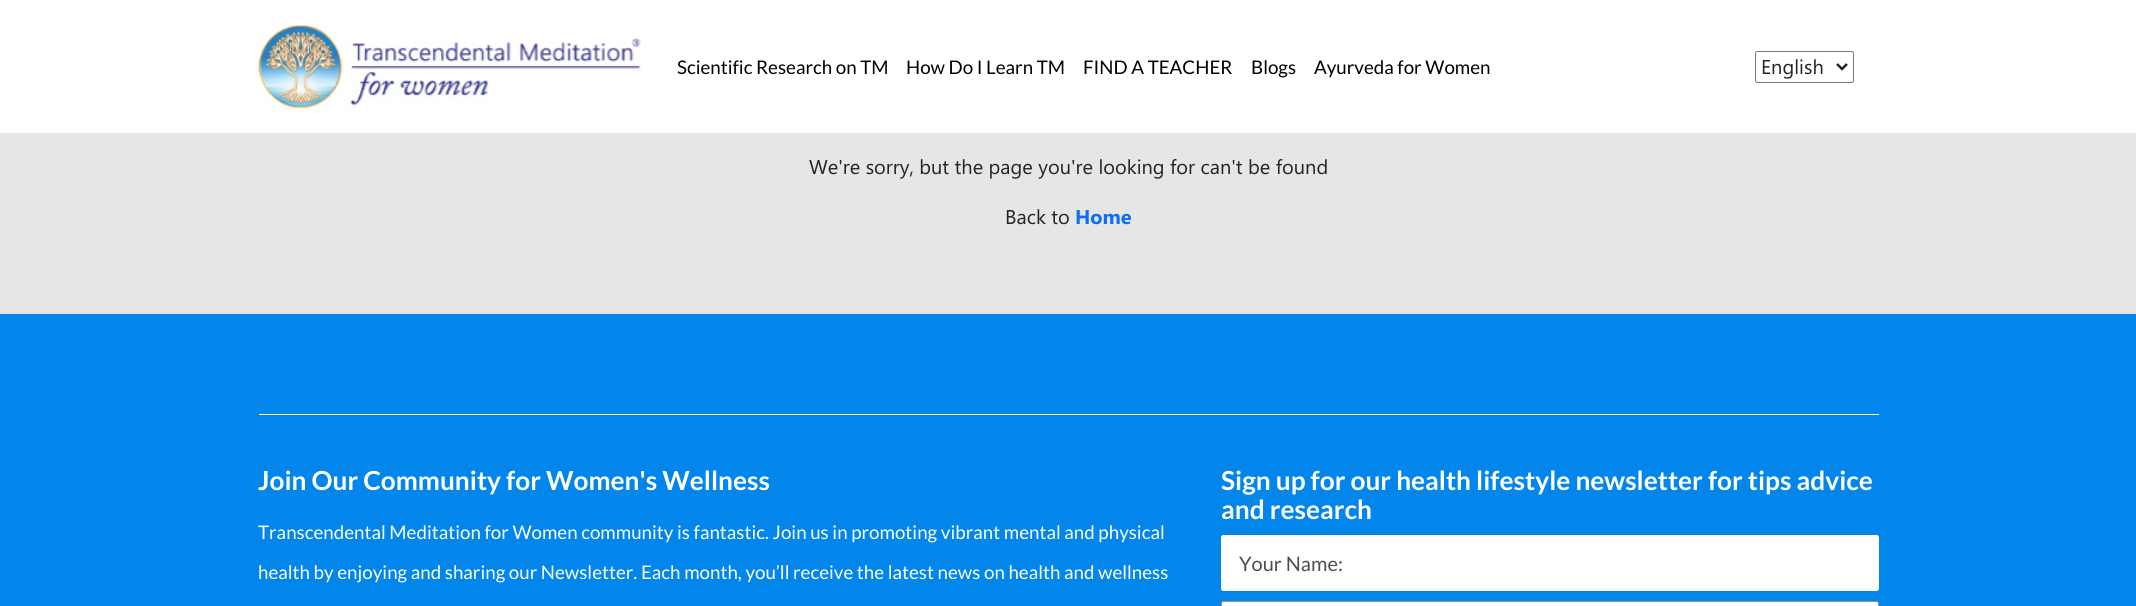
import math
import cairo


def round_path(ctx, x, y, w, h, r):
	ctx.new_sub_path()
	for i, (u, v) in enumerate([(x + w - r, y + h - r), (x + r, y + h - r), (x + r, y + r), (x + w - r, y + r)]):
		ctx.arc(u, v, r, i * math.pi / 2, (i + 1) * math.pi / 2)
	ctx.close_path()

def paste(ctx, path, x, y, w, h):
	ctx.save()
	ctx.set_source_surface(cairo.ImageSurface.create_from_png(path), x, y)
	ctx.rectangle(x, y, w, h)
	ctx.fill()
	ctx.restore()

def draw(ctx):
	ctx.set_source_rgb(0.902, 0.902, 0.902)
	ctx.paint()
	ctx.set_source_rgb(1, 1, 1)
	ctx.rectangle(0, 0, 2136, 133)
	ctx.fill()
	paste(ctx, 'media/1.png', 258, 25, 383, 84)
	ctx.select_font_face('Lato')
	ctx.set_font_size(18.75)
	ctx.set_source_rgb(0, 0, 0)
	for x, y, s in [
		(677, 74, 'Scientific Research on TM'),
		(906, 74, 'How Do I Learn TM'),
		(1083, 74, 'FIND A TEACHER'),
		(1251, 74, 'Blogs'),
		(1314, 74, 'Ayurveda for Women'),
	]:
		ctx.move_to(x, y)
		ctx.show_text(s)
	round_path(ctx, 1755.5, 51.5, 98, 31, 2)
	ctx.set_source_rgb(0.463, 0.463, 0.463)
	ctx.set_line_width(1)
	ctx.stroke()
	ctx.new_path()
	ctx.move_to(1837, 64)
	ctx.line_to(1842, 69)
	ctx.line_to(1847, 64)
	ctx.set_source_rgb(0.129, 0.145, 0.161)
	ctx.set_line_width(2.5)
	ctx.stroke()
	ctx.select_font_face('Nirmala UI')
	ctx.set_font_size(20)
	for x, y, s in [
		(1761, 74, 'English'),
		(809, 174, 'We\'re sorry, but the page you\'re looking for can\'t be found'),
		(1005, 224, 'Back to'),
	]:
		ctx.move_to(x, y)
		ctx.show_text(s)
	ctx.select_font_face('Nirmala UI', cairo.FONT_SLANT_NORMAL, cairo.FONT_WEIGHT_BOLD)
	ctx.set_source_rgb(0.051, 0.431, 0.992)
	ctx.move_to(1075, 224)
	ctx.show_text('Home')
	ctx.set_source_rgb(0.008, 0.525, 0.925)
	ctx.rectangle(0, 314, 2136, 292)
	ctx.fill()
	ctx.set_source_rgb(1, 1, 1)
	ctx.rectangle(259, 414, 1620, 1)
	ctx.fill()
	ctx.select_font_face('Lato', cairo.FONT_SLANT_NORMAL, cairo.FONT_WEIGHT_BOLD)
	ctx.set_font_size(26.25)
	ctx.move_to(258, 490)
	ctx.show_text('Join Our Community for Women\'s Wellness')
	ctx.select_font_face('Lato')
	ctx.set_font_size(18.75)
	ctx.move_to(258, 539)
	ctx.show_text('Transcendental Meditation for Women community is fantastic. Join us in promoting vibrant mental and physical')
	ctx.move_to(258, 579)
	ctx.show_text('health by enjoying and sharing our Newsletter. Each month, you’ll receive the latest news on health and wellness')
	ctx.select_font_face('Lato', cairo.FONT_SLANT_NORMAL, cairo.FONT_WEIGHT_BOLD)
	ctx.set_font_size(26.25)
	ctx.move_to(1221, 490)
	ctx.show_text('Sign up for our health lifestyle newsletter for tips advice')
	ctx.move_to(1221, 519)
	ctx.show_text('and research')
	round_path(ctx, 1221, 535, 658, 56, 2.5)
	ctx.fill()
	ctx.select_font_face('Lato')
	ctx.set_font_size(20)
	ctx.set_source_rgb(0.302, 0.302, 0.302)
	ctx.move_to(1239, 571)
	ctx.show_text('Your Name:')
	ctx.set_source_rgb(1, 1, 1)
	round_path(ctx, 1221.5, 601.5, 657, 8, 2)
	ctx.fill_preserve()
	ctx.set_source_rgb(0.584, 0.584, 0.584)
	ctx.set_line_width(1)
	ctx.stroke()


surface = cairo.ImageSurface(cairo.FORMAT_RGB24, 2136, 606)
ctx = cairo.Context(surface)
options = cairo.FontOptions()
options.set_hint_metrics(cairo.HINT_METRICS_OFF)
options.set_hint_style(cairo.HINT_STYLE_NONE)
ctx.set_font_options(options)
ctx.set_miter_limit(4)
draw(ctx)
surface.write_to_png('image.png')
